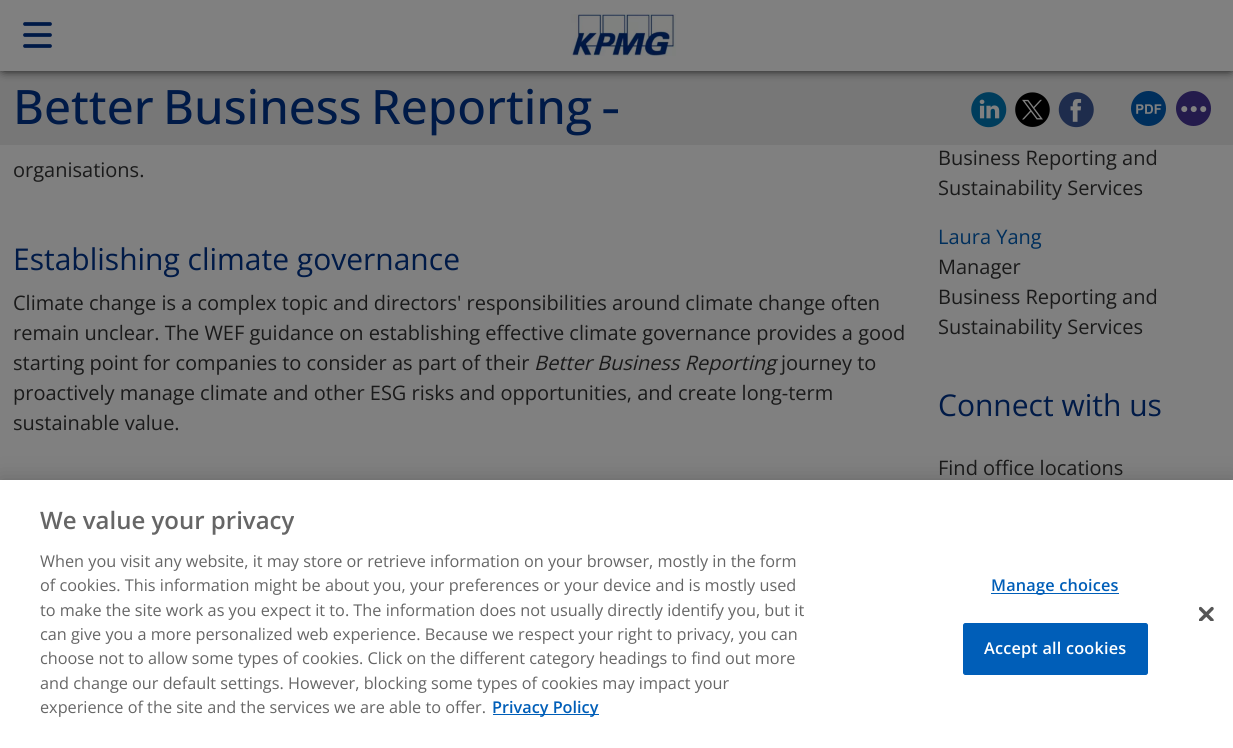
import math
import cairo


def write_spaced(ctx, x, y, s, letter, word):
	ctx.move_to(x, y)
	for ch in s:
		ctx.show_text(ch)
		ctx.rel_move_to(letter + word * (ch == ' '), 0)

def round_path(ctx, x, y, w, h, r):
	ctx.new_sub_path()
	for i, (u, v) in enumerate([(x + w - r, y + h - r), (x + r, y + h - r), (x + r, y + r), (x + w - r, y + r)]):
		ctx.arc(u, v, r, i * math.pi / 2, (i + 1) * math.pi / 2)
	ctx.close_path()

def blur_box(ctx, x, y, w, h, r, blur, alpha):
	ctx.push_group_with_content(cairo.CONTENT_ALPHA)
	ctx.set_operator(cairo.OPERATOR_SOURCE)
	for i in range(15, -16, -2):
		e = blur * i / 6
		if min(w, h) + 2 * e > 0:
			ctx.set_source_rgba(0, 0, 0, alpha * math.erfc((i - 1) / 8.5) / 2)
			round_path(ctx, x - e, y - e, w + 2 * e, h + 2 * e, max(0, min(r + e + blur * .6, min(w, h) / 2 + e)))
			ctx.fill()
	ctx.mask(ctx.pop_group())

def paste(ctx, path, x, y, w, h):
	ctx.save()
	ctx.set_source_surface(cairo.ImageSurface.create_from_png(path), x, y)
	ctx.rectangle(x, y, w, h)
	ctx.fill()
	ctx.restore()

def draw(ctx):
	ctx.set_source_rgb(0.502, 0.502, 0.502)
	ctx.paint()
	ctx.set_source_rgb(0.467, 0.467, 0.467)
	ctx.rectangle(0, 71, 1233, 74)
	ctx.fill()
	ctx.set_source_rgb(0, 0, 0)
	blur_box(ctx, 0, -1, 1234, 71, 5, 5, 1)
	ctx.set_source_rgb(0.502, 0.502, 0.502)
	ctx.rectangle(0, 0, 1233, 71)
	ctx.fill()
	ctx.new_path()
	ctx.move_to(25, 24)
	ctx.line_to(50, 24)
	ctx.move_to(25, 35)
	ctx.line_to(50, 35)
	ctx.move_to(25, 46)
	ctx.line_to(50, 46)
	ctx.set_source_rgb(0, 0.102, 0.278)
	ctx.set_line_width(3.8)
	ctx.set_line_cap(cairo.LINE_CAP_ROUND)
	ctx.stroke()
	paste(ctx, 'media/1.png', 570, 14, 106, 42)
	ctx.save()
	ctx.rectangle(13, 75, 605, 61)
	ctx.clip()
	ctx.select_font_face('Open Sans Medium')
	ctx.set_font_size(47.5)
	write_spaced(ctx, 13, 124, 'Better Business Reporting –', 0, -3)
	ctx.restore()
	ctx.set_source_rgb(0.502, 0.502, 0.502)
	ctx.new_path()
	ctx.arc(989, 110, 16, 0, 2 * math.pi)
	ctx.fill()
	paste(ctx, 'media/2.png', 971, 92, 36, 36)
	round_path(ctx, 1016, 94, 33, 32, 16)
	ctx.fill()
	paste(ctx, 'media/3.png', 1015, 92, 35, 35)
	round_path(ctx, 1060, 94, 33, 32, 16)
	ctx.fill()
	paste(ctx, 'media/4.png', 1058, 92, 36, 36)
	ctx.set_source_rgb(0, 0.184, 0.361)
	ctx.arc(1148.5, 108.5, 17.5, 0, 2 * math.pi)
	ctx.fill()
	paste(ctx, 'media/5.png', 1136, 104, 26, 10)
	ctx.set_source_rgb(0.141, 0.106, 0.298)
	ctx.arc(1193.5, 108.5, 17.5, 0, 2 * math.pi)
	ctx.fill()
	paste(ctx, 'media/6.png', 1181, 106, 26, 7)
	ctx.select_font_face('Open Sans')
	ctx.set_font_size(20)
	ctx.set_source_rgb(0.102, 0.102, 0.102)
	ctx.move_to(13, 177)
	ctx.show_text('organisations.')
	ctx.set_font_size(30)
	ctx.set_source_rgb(0, 0.102, 0.278)
	ctx.move_to(13, 270)
	ctx.show_text('Establishing climate governance')
	ctx.set_font_size(20)
	ctx.set_source_rgb(0.102, 0.102, 0.102)
	for x, y, s in [
		(13, 310, 'Climate change is a complex topic and directors\' responsibilities around climate change often'),
		(13, 340, 'remain unclear. The WEF guidance on establishing effective climate governance provides a good'),
		(13, 370, 'starting point for companies to consider as part of their'),
	]:
		ctx.move_to(x, y)
		ctx.show_text(s)
	ctx.select_font_face('Open Sans', cairo.FONT_SLANT_ITALIC)
	ctx.move_to(534, 370)
	ctx.show_text('Better Business Reporting')
	ctx.select_font_face('Open Sans')
	for x, y, s in [
		(781, 370, 'journey to'),
		(13, 400, 'proactively manage climate and other ESG risks and opportunities, and create long-term'),
		(13, 430, 'sustainable value.'),
		(938, 165, 'Business Reporting and'),
		(938, 195, 'Sustainability Services'),
	]:
		ctx.move_to(x, y)
		ctx.show_text(s)
	ctx.set_source_rgb(0, 0.184, 0.361)
	ctx.move_to(938, 244)
	ctx.show_text('Laura Yang')
	ctx.set_source_rgb(0.102, 0.102, 0.102)
	for x, y, s in [
		(938, 274, 'Manager'),
		(938, 304, 'Business Reporting and'),
		(938, 334, 'Sustainability Services'),
	]:
		ctx.move_to(x, y)
		ctx.show_text(s)
	ctx.set_font_size(30)
	ctx.set_source_rgb(0, 0.102, 0.278)
	ctx.move_to(938, 416)
	ctx.show_text('Connect with us')
	ctx.set_font_size(20)
	ctx.set_source_rgb(0.102, 0.102, 0.102)
	ctx.move_to(938, 475)
	ctx.show_text('Find office locations')
	ctx.set_source_rgb(0, 0, 0)
	blur_box(ctx, 0, 480, 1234, 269, 0, 11, 0.2)
	ctx.set_source_rgb(1, 1, 1)
	ctx.rectangle(0, 480, 1233, 268)
	ctx.fill()
	ctx.select_font_face('Open Sans SemiBold')
	ctx.set_font_size(24)
	ctx.set_source_rgb(0.4, 0.4, 0.4)
	ctx.move_to(40, 529)
	ctx.show_text('We value your privacy')
	ctx.select_font_face('Open Sans')
	ctx.set_font_size(16.25)
	for x, y, s in [
		(40, 567, 'When you visit any website, it may store or retrieve information on your browser, mostly in the form'),
		(40, 591, 'of cookies. This information might be about you, your preferences or your device and is mostly used'),
		(40, 616, 'to make the site work as you expect it to. The information does not usually directly identify you, but it'),
		(40, 640, 'can give you a more personalized web experience. Because we respect your right to privacy, you can'),
		(40, 664, 'choose not to allow some types of cookies. Click on the different category headings to find out more'),
		(40, 689, 'and change our default settings. However, blocking some types of cookies may impact your'),
		(40, 713, 'experience of the site and the services we are able to offer.'),
	]:
		ctx.move_to(x, y)
		ctx.show_text(s)
	ctx.set_source_rgb(0, 0.369, 0.722)
	ctx.rectangle(493, 714, 106, 1)
	ctx.fill()
	ctx.select_font_face('Open Sans SemiBold')
	ctx.move_to(492, 713)
	ctx.show_text('Privacy Policy')
	ctx.rectangle(991, 593, 128, 1)
	ctx.fill()
	write_spaced(ctx, 991, 591, 'Manage choices', 0.2, 0)
	round_path(ctx, 963.5, 623.5, 184, 51, 2)
	ctx.fill_preserve()
	ctx.set_line_width(1)
	ctx.set_line_cap(cairo.LINE_CAP_BUTT)
	ctx.stroke()
	ctx.set_source_rgb(1, 1, 1)
	write_spaced(ctx, 984, 654, 'Accept all cookies', 0.2, 0)
	paste(ctx, 'media/7.png', 1199, 606, 15, 15)


surface = cairo.ImageSurface(cairo.FORMAT_RGB24, 1233, 748)
ctx = cairo.Context(surface)
options = cairo.FontOptions()
options.set_hint_metrics(cairo.HINT_METRICS_OFF)
options.set_hint_style(cairo.HINT_STYLE_NONE)
ctx.set_font_options(options)
ctx.set_miter_limit(4)
draw(ctx)
surface.write_to_png('image.png')
